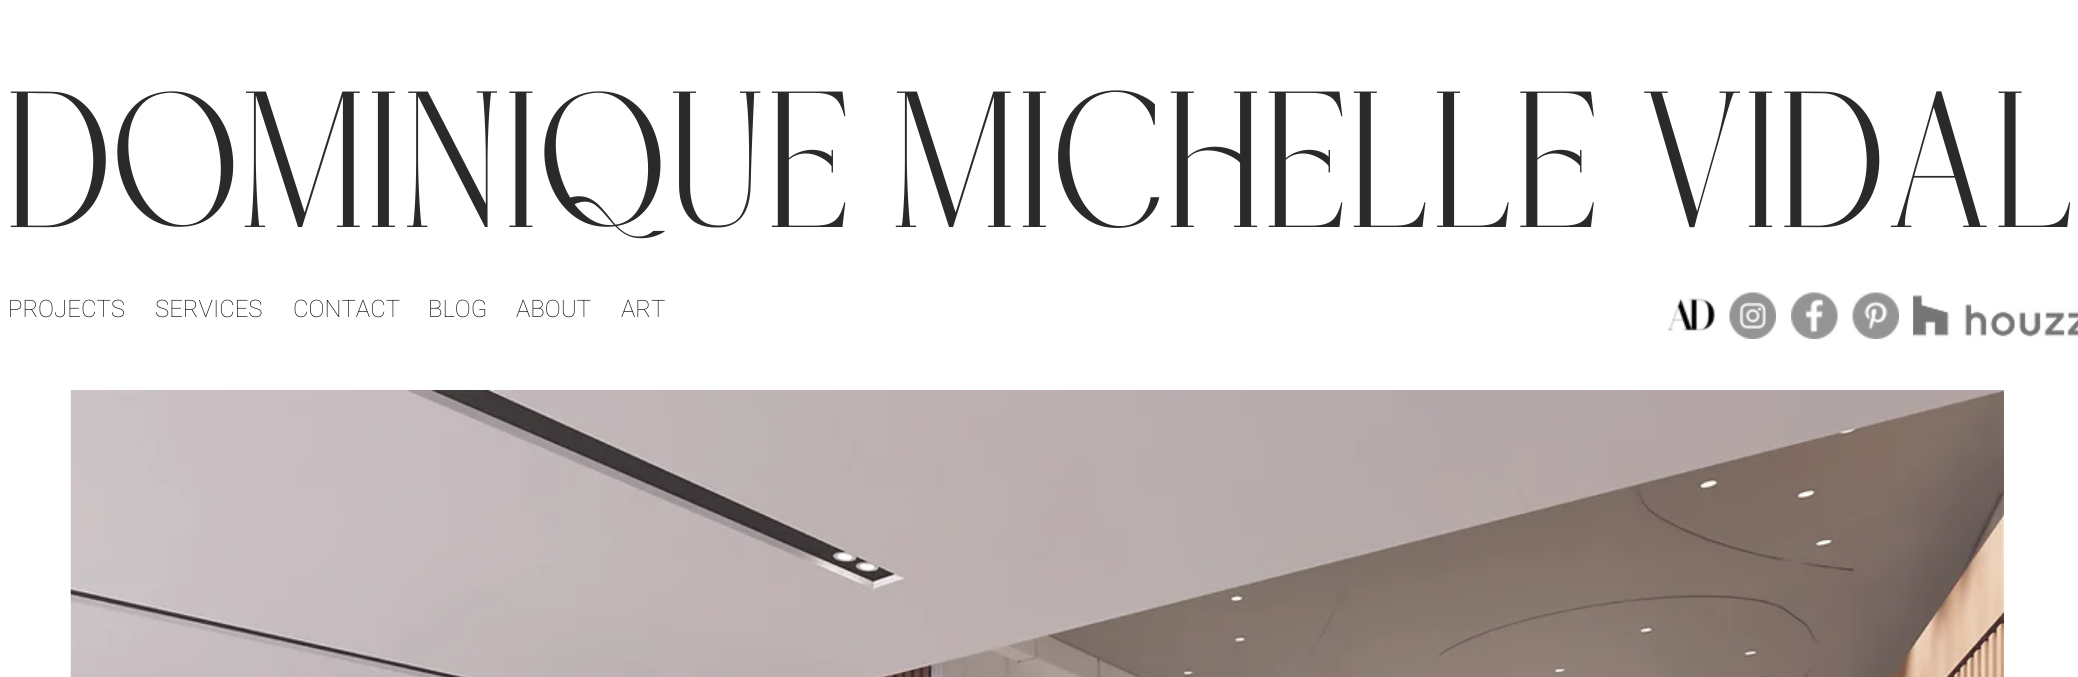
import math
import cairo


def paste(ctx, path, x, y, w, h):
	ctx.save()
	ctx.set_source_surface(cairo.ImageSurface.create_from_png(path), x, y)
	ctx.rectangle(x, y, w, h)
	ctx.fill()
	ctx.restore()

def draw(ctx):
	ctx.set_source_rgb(1, 1, 1)
	ctx.paint()
	ctx.select_font_face('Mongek')
	ctx.set_font_size(193.5)
	ctx.set_source_rgb(0.165, 0.165, 0.165)
	ctx.move_to(5, 227)
	ctx.show_text('DOMINIQUE MICHELLE VIDAL')
	ctx.select_font_face('Roboto Thin')
	ctx.set_font_size(24)
	ctx.set_source_rgb(0, 0, 0)
	for x, y, s in [
		(8, 317, 'PROJECTS'),
		(155, 317, 'SERVICES'),
		(293, 317, 'CONTACT'),
		(428, 317, 'BLOG'),
		(516, 317, 'ABOUT'),
		(621, 317, 'ART'),
	]:
		ctx.move_to(x, y)
		ctx.show_text(s)
	paste(ctx, 'media/1.png', 1668, 298, 47, 34)
	paste(ctx, 'media/2.png', 1729, 292, 47, 47)
	paste(ctx, 'media/3.png', 1791, 292, 47, 47)
	paste(ctx, 'media/4.png', 1852, 292, 47, 47)
	paste(ctx, 'media/5.png', 1913, 295, 165, 42)
	paste(ctx, 'media/6.png', 70, 390, 1934, 287)


surface = cairo.ImageSurface(cairo.FORMAT_RGB24, 2078, 677)
ctx = cairo.Context(surface)
options = cairo.FontOptions()
options.set_hint_metrics(cairo.HINT_METRICS_OFF)
options.set_hint_style(cairo.HINT_STYLE_NONE)
ctx.set_font_options(options)
ctx.set_miter_limit(4)
draw(ctx)
surface.write_to_png('image.png')
